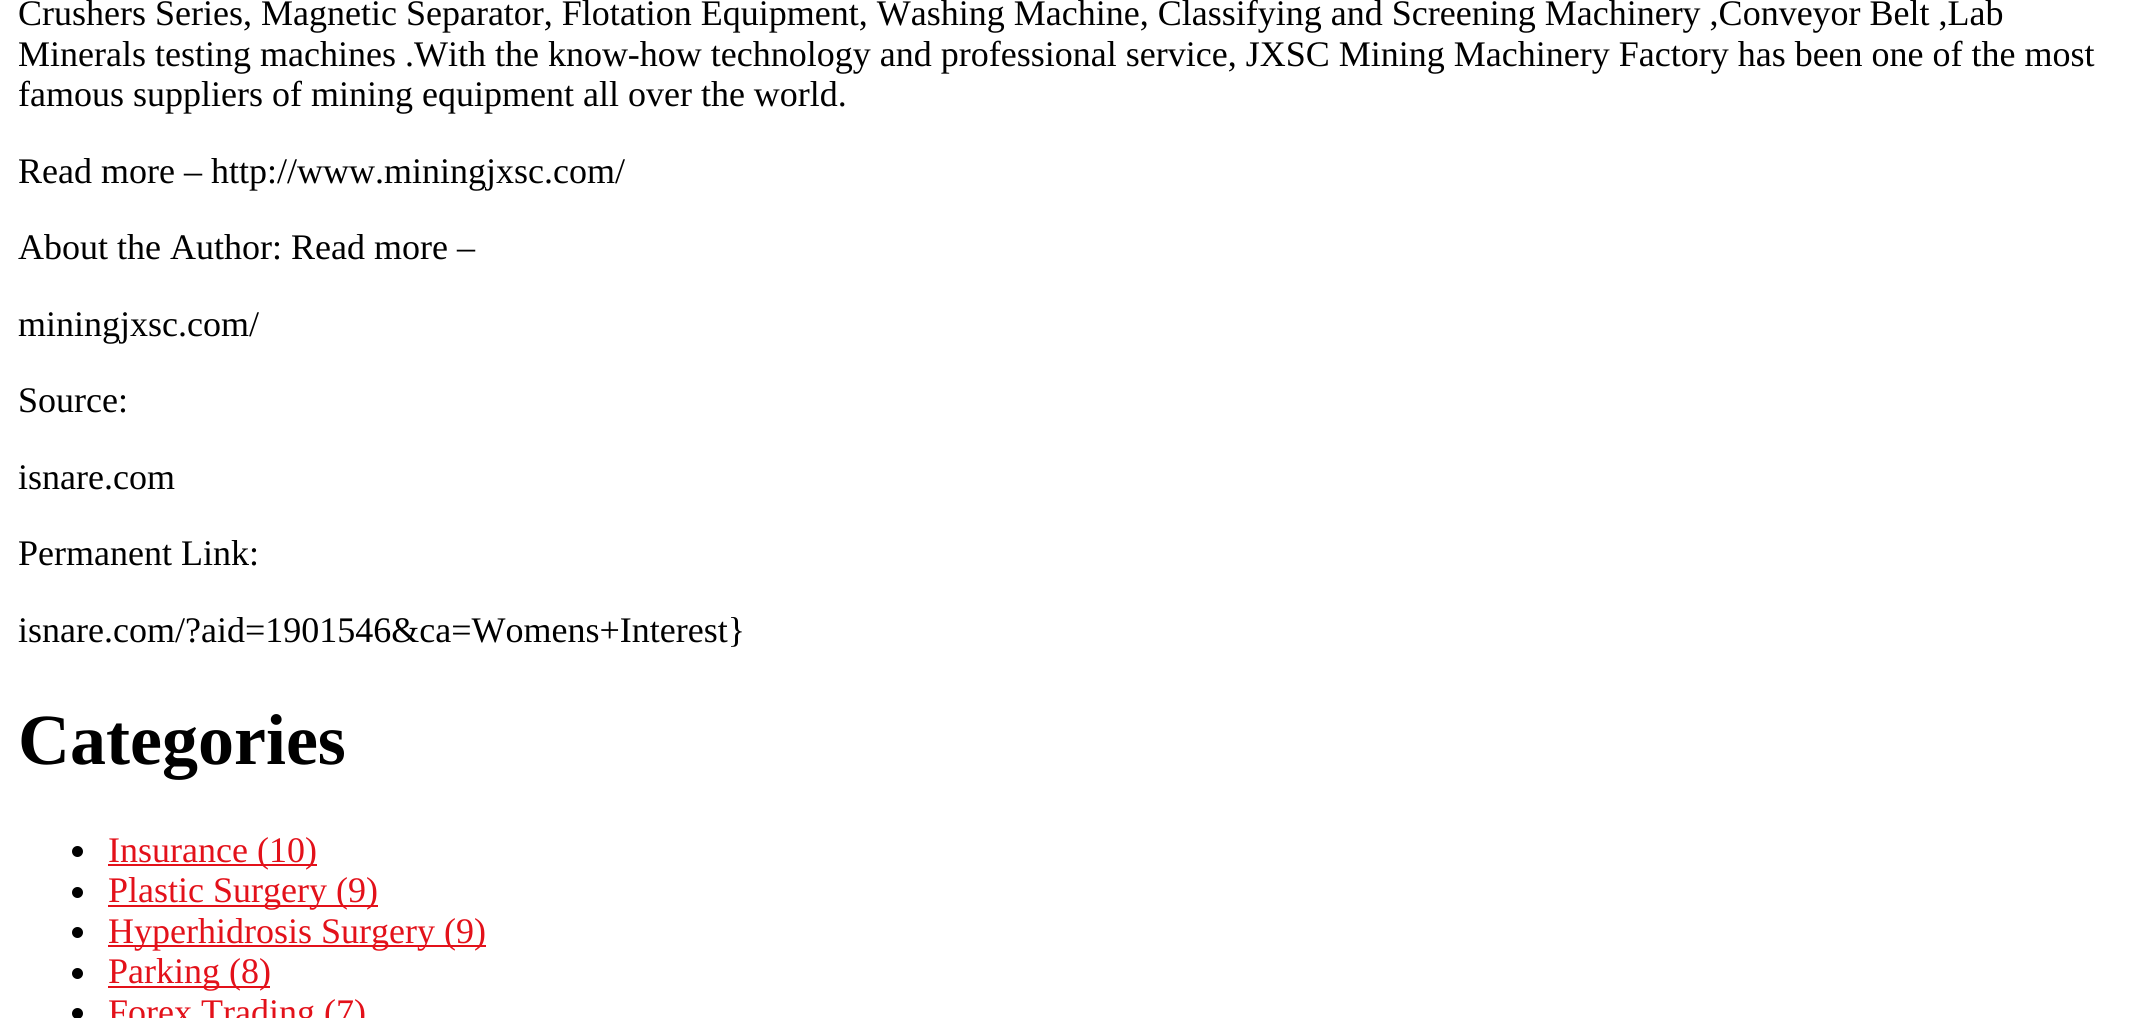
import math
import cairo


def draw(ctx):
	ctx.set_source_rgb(1, 1, 1)
	ctx.paint()
	ctx.select_font_face('Liberation Serif')
	ctx.set_font_size(36)
	ctx.set_source_rgb(0, 0, 0)
	for x, y, s in [
		(18, 25, 'Crushers Series, Magnetic Separator, Flotation Equipment, Washing Machine, Classifying and Screening Machinery ,Conveyor Belt ,Lab'),
		(18, 66, 'Minerals testing machines .With the know-how technology and professional service, JXSC Mining Machinery Factory has been one of the most'),
		(18, 106, 'famous suppliers of mining equipment all over the world.'),
		(18, 183, 'Read more – http://www.miningjxsc.com/'),
		(18, 259, 'About the Author: Read more –'),
		(18, 336, 'miningjxsc.com/'),
		(18, 412, 'Source:'),
		(18, 489, 'isnare.com'),
		(18, 565, 'Permanent Link:'),
		(18, 642, 'isnare.com/?aid=1901546&ca=Womens+Interest}'),
	]:
		ctx.move_to(x, y)
		ctx.show_text(s)
	ctx.select_font_face('Liberation Serif', cairo.FONT_SLANT_NORMAL, cairo.FONT_WEIGHT_BOLD)
	ctx.set_font_size(72)
	ctx.move_to(18, 764)
	ctx.show_text('Categories')
	ctx.new_path()
	ctx.arc(77.5, 851.5, 5.5, 0, 2 * math.pi)
	ctx.fill()
	ctx.set_source_rgb(0.89, 0.067, 0.102)
	ctx.rectangle(108, 864, 209, 2)
	ctx.fill()
	ctx.select_font_face('Liberation Serif')
	ctx.set_font_size(36)
	ctx.move_to(108, 862)
	ctx.show_text('Insurance (10)')
	ctx.set_source_rgb(0, 0, 0)
	ctx.new_path()
	ctx.arc(77.5, 892.5, 5.5, 0, 2 * math.pi)
	ctx.fill()
	ctx.set_source_rgb(0.89, 0.067, 0.102)
	ctx.rectangle(108, 905, 270, 2)
	ctx.fill()
	ctx.move_to(108, 902)
	ctx.show_text('Plastic Surgery (9)')
	ctx.set_source_rgb(0, 0, 0)
	ctx.new_path()
	ctx.arc(77.5, 932.5, 5.5, 0, 2 * math.pi)
	ctx.fill()
	ctx.set_source_rgb(0.89, 0.067, 0.102)
	ctx.rectangle(108, 945, 378, 2)
	ctx.fill()
	ctx.move_to(108, 943)
	ctx.show_text('Hyperhidrosis Surgery (9)')
	ctx.set_source_rgb(0, 0, 0)
	ctx.new_path()
	ctx.arc(77.5, 973.5, 5.5, 0, 2 * math.pi)
	ctx.fill()
	ctx.set_source_rgb(0.89, 0.067, 0.102)
	ctx.rectangle(108, 986, 162, 2)
	ctx.fill()
	ctx.move_to(108, 983)
	ctx.show_text('Parking (8)')
	ctx.set_source_rgb(0, 0, 0)
	ctx.new_path()
	ctx.arc(77.5, 1013.5, 5.5, 0, 2 * math.pi)
	ctx.fill()
	ctx.set_source_rgb(0.89, 0.067, 0.102)
	ctx.move_to(108, 1024)
	ctx.show_text('Forex Trading (7)')


surface = cairo.ImageSurface(cairo.FORMAT_RGB24, 2144, 1018)
ctx = cairo.Context(surface)
options = cairo.FontOptions()
options.set_hint_metrics(cairo.HINT_METRICS_OFF)
options.set_hint_style(cairo.HINT_STYLE_NONE)
ctx.set_font_options(options)
ctx.set_miter_limit(4)
draw(ctx)
surface.write_to_png('image.png')
